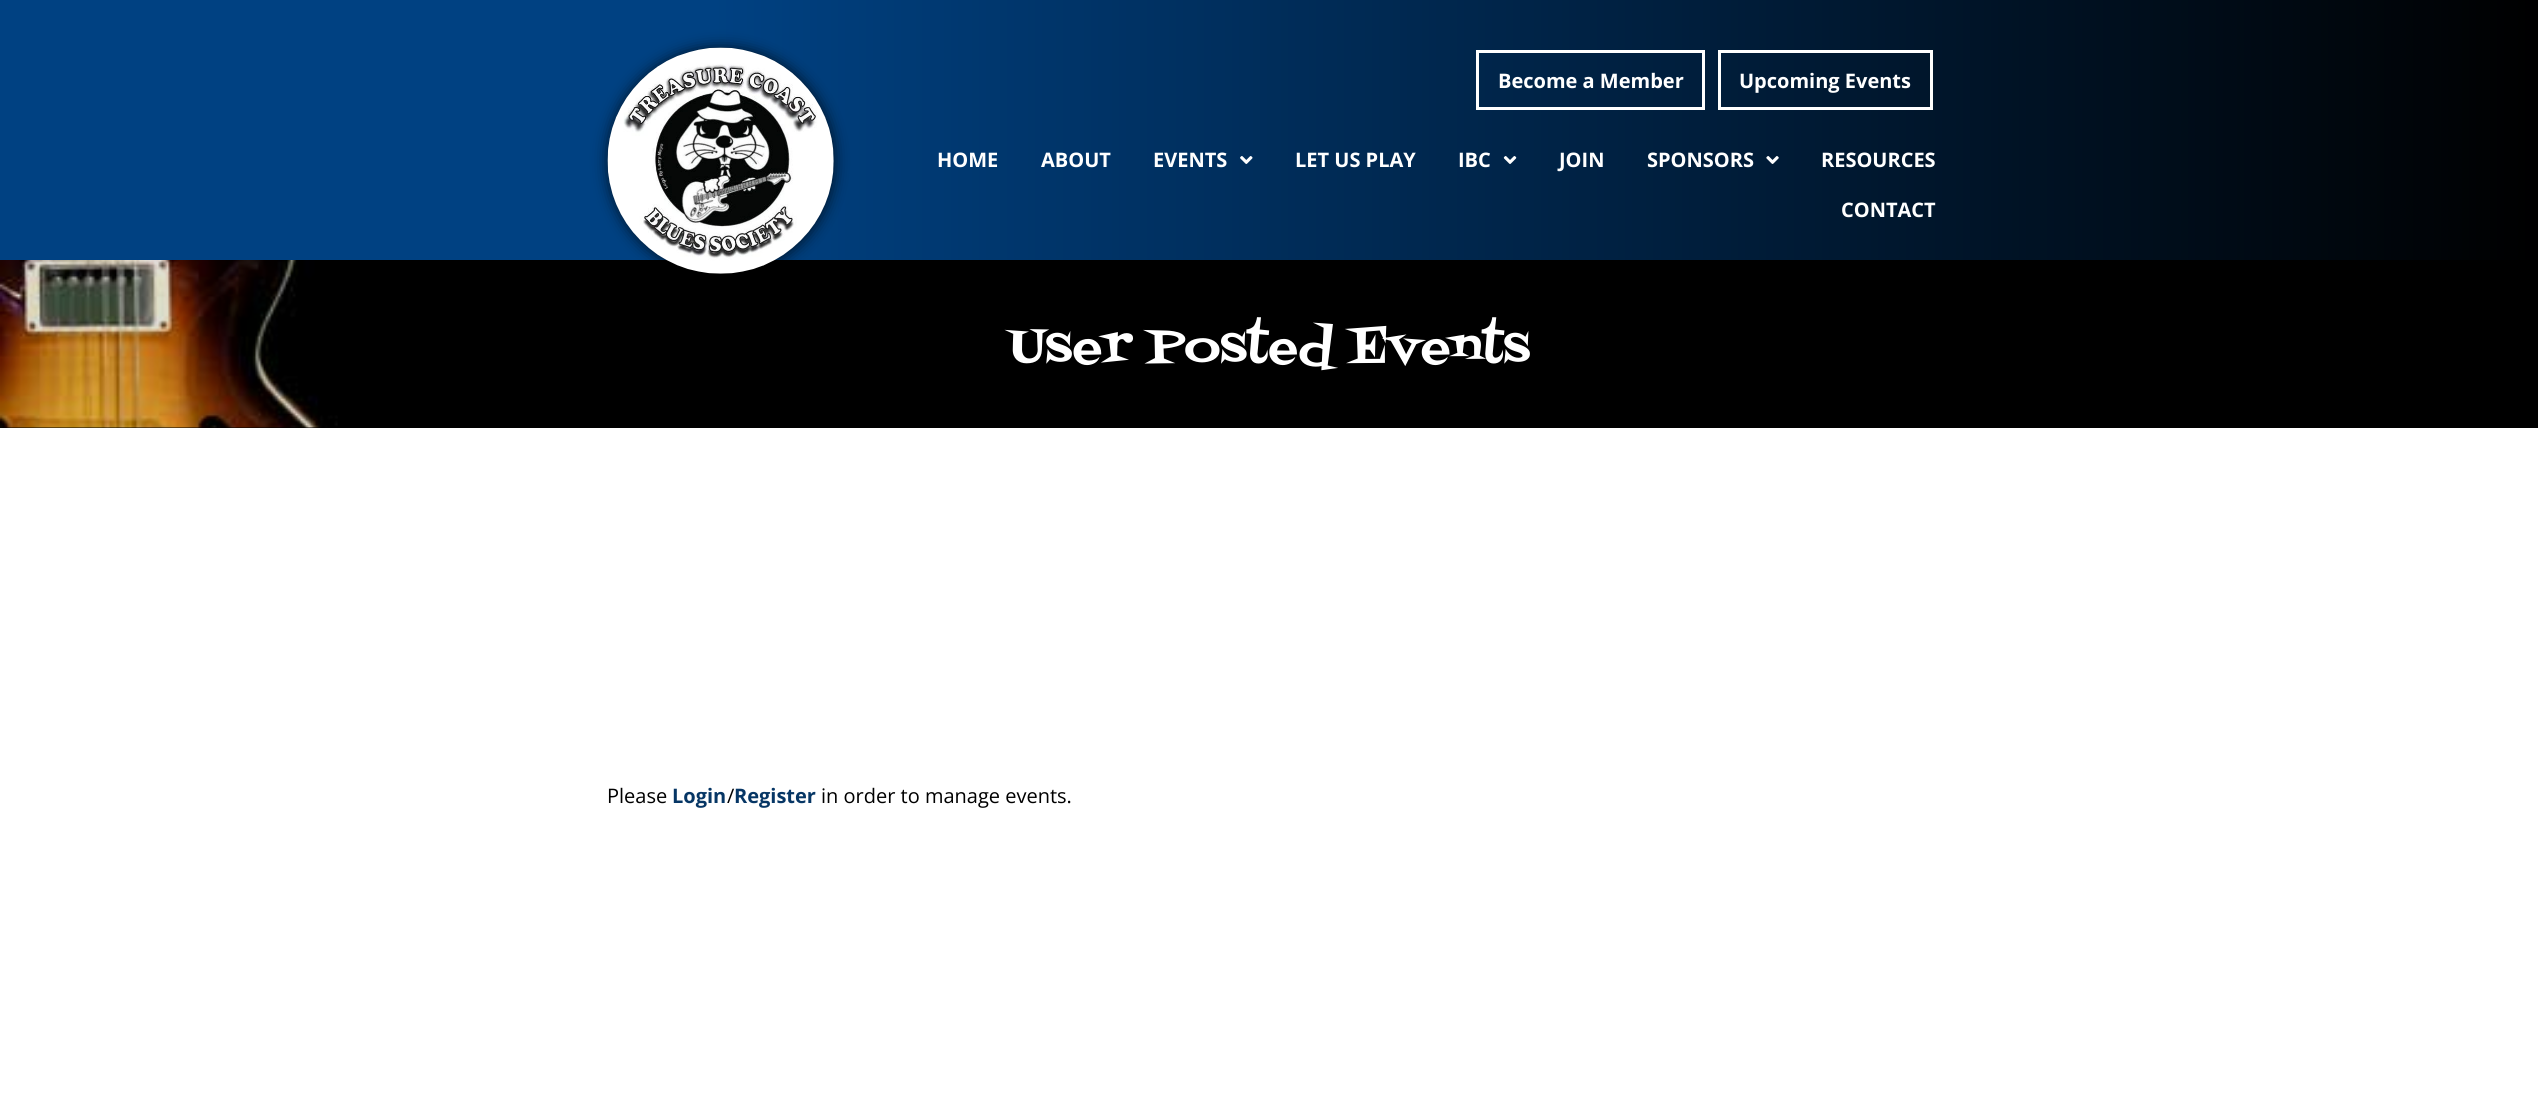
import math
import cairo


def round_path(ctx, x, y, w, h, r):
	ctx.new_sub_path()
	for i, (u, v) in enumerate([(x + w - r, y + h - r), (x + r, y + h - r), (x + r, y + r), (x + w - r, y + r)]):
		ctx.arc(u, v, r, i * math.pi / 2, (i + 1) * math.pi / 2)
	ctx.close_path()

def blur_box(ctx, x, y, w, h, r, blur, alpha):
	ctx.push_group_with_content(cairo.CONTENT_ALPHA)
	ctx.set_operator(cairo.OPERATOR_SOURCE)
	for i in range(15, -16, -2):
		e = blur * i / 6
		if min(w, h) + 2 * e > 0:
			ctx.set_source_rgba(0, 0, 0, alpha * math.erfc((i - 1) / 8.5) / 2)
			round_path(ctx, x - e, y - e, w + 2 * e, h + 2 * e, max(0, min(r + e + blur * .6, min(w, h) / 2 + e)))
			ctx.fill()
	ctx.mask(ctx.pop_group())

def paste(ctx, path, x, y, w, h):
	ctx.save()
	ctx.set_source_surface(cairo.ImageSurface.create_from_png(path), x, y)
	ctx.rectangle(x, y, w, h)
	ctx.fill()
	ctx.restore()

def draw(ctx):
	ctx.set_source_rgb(1, 1, 1)
	ctx.paint()
	gradient = cairo.LinearGradient(0, 130, 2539, 130)
	gradient.add_color_stop_rgba(0.28, 0, 0.255, 0.51, 1)
	gradient.add_color_stop_rgba(1, 0, 0, 0, 1)
	ctx.set_source(gradient)
	ctx.rectangle(0, 0, 2538, 260)
	ctx.fill()
	ctx.set_source_rgb(0, 0, 0)
	ctx.rectangle(0, 260, 2538, 168)
	ctx.fill()
	ctx.set_source_rgb(0, 0, 0)
	blur_box(ctx, 608, 48, 226, 226, 113, 7.5, 0.75)
	paste(ctx, 'media/1.png', 607, 47, 227, 227)
	ctx.rectangle(1477.5, 51.5, 226, 57)
	ctx.set_source_rgb(1, 1, 1)
	ctx.set_line_width(3)
	ctx.stroke()
	ctx.select_font_face('Open Sans', cairo.FONT_SLANT_NORMAL, cairo.FONT_WEIGHT_BOLD)
	ctx.set_font_size(20)
	ctx.move_to(1498, 88)
	ctx.show_text('Become a Member')
	ctx.rectangle(1719.5, 51.5, 212, 57)
	ctx.stroke()
	for x, y, s in [
		(1739, 88, 'Upcoming Events'),
		(937, 167, 'HOME'),
		(1041, 167, 'ABOUT'),
		(1153, 167, 'EVENTS'),
	]:
		ctx.move_to(x, y)
		ctx.show_text(s)
	paste(ctx, 'media/2.png', 1240, 156, 13, 8)
	ctx.move_to(1295, 167)
	ctx.show_text('LET US PLAY')
	ctx.move_to(1458, 167)
	ctx.show_text('IBC')
	paste(ctx, 'media/3.png', 1503, 156, 14, 8)
	ctx.move_to(1559, 167)
	ctx.show_text('JOIN')
	ctx.move_to(1647, 167)
	ctx.show_text('SPONSORS')
	paste(ctx, 'media/4.png', 1766, 156, 13, 8)
	ctx.move_to(1821, 167)
	ctx.show_text('RESOURCES')
	ctx.move_to(1841, 217)
	ctx.show_text('CONTACT')
	paste(ctx, 'media/5.png', 0, 260, 338, 168)
	ctx.select_font_face('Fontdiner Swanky')
	ctx.set_font_size(50)
	ctx.move_to(1009, 362)
	ctx.show_text('User Posted Events')
	ctx.select_font_face('Open Sans')
	ctx.set_font_size(20)
	ctx.set_source_rgb(0, 0, 0)
	ctx.move_to(607, 803)
	ctx.show_text('Please')
	ctx.select_font_face('Open Sans', cairo.FONT_SLANT_NORMAL, cairo.FONT_WEIGHT_BOLD)
	ctx.set_source_rgb(0.024, 0.212, 0.396)
	ctx.move_to(672, 803)
	ctx.show_text('Login')
	ctx.select_font_face('Open Sans')
	ctx.set_source_rgb(0, 0, 0)
	ctx.move_to(727, 803)
	ctx.show_text('/')
	ctx.select_font_face('Open Sans', cairo.FONT_SLANT_NORMAL, cairo.FONT_WEIGHT_BOLD)
	ctx.set_source_rgb(0.024, 0.212, 0.396)
	ctx.move_to(734, 803)
	ctx.show_text('Register')
	ctx.select_font_face('Open Sans')
	ctx.set_source_rgb(0, 0, 0)
	ctx.move_to(821, 803)
	ctx.show_text('in order to manage events.')


surface = cairo.ImageSurface(cairo.FORMAT_RGB24, 2538, 1104)
ctx = cairo.Context(surface)
options = cairo.FontOptions()
options.set_hint_metrics(cairo.HINT_METRICS_OFF)
options.set_hint_style(cairo.HINT_STYLE_NONE)
ctx.set_font_options(options)
ctx.set_miter_limit(4)
draw(ctx)
surface.write_to_png('image.png')
